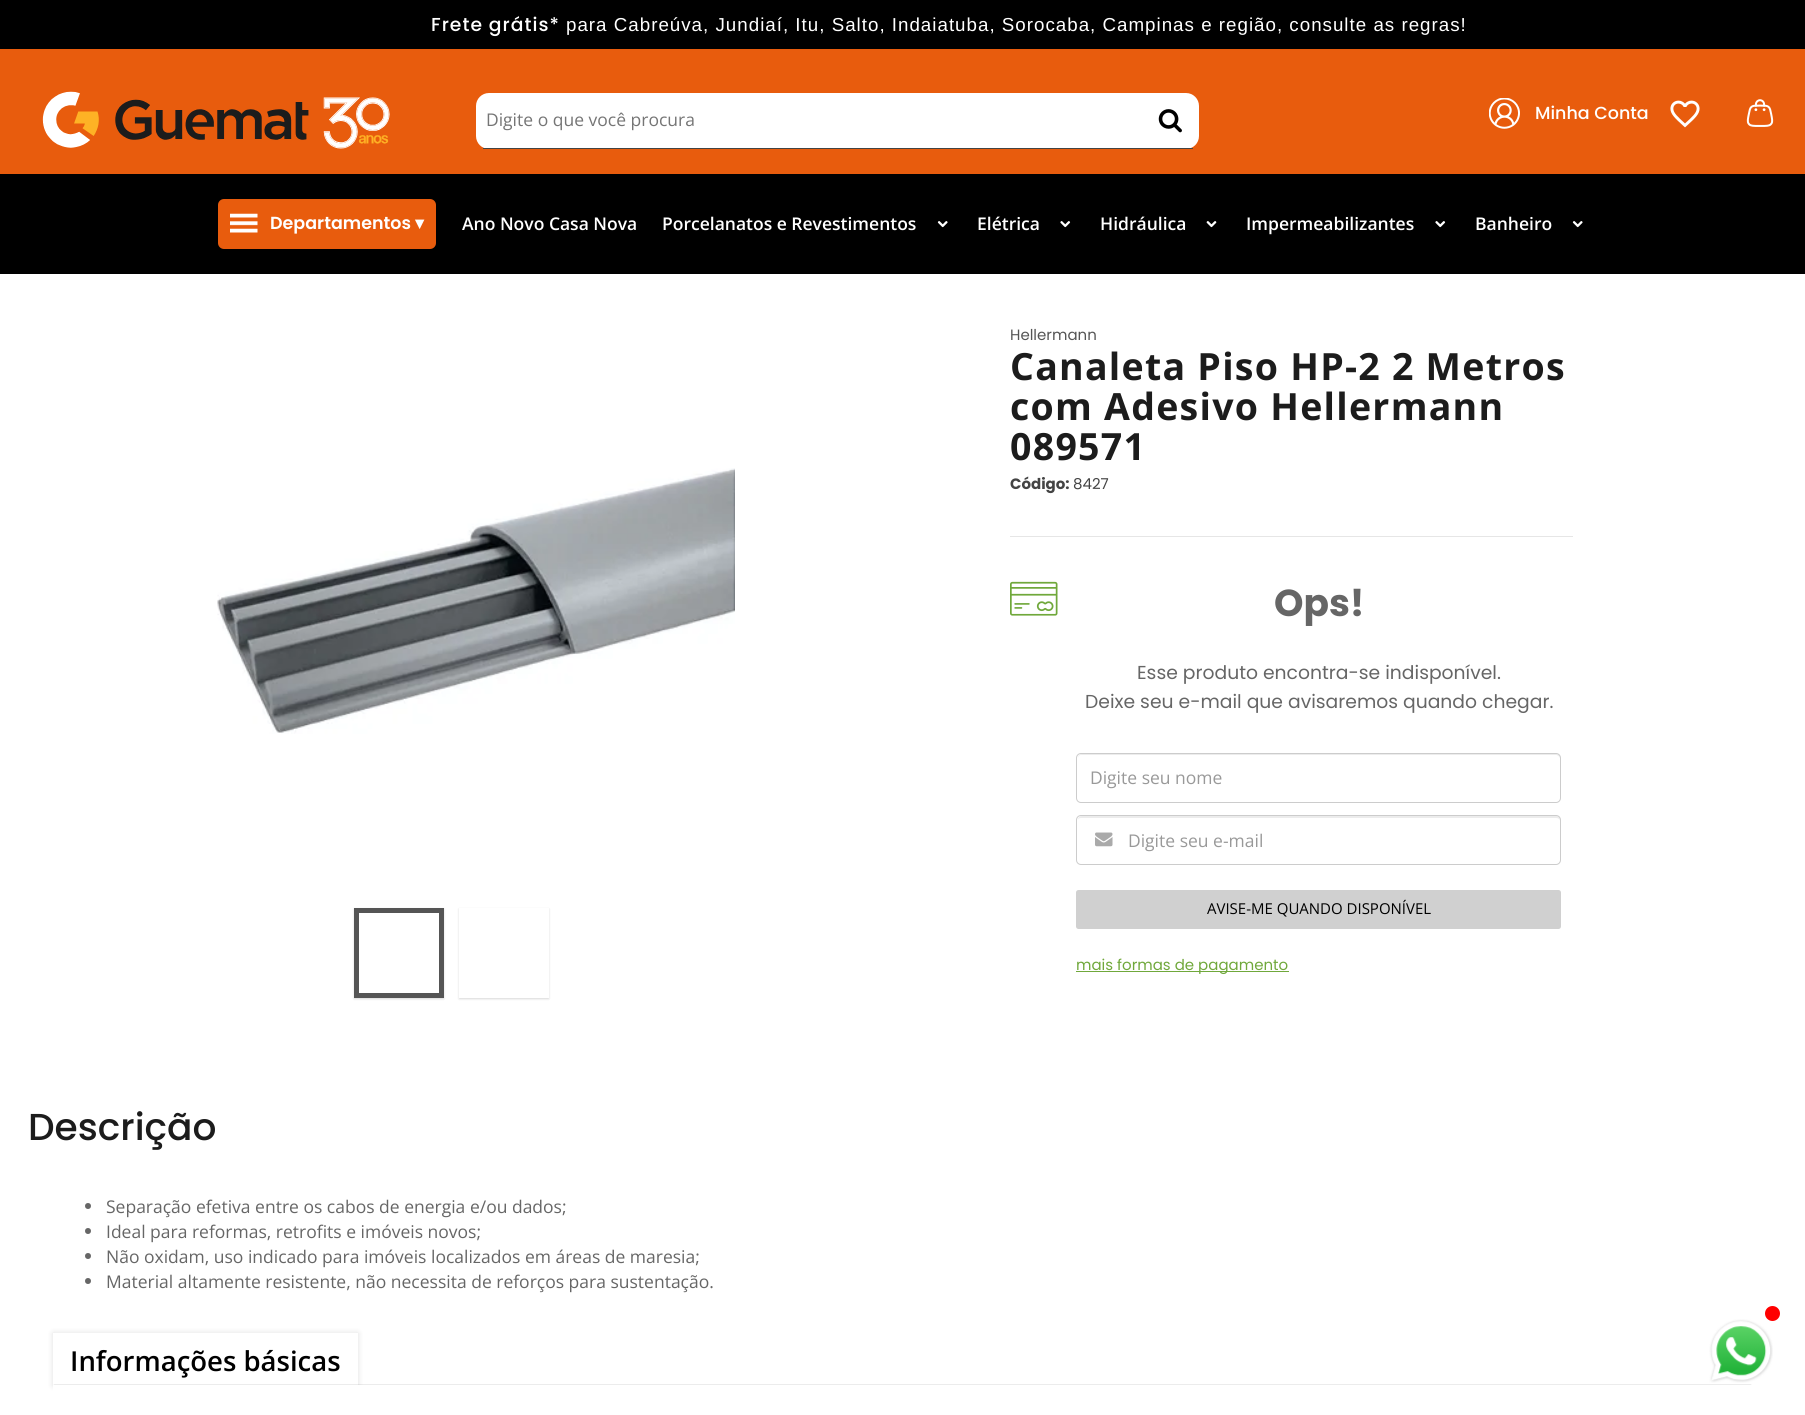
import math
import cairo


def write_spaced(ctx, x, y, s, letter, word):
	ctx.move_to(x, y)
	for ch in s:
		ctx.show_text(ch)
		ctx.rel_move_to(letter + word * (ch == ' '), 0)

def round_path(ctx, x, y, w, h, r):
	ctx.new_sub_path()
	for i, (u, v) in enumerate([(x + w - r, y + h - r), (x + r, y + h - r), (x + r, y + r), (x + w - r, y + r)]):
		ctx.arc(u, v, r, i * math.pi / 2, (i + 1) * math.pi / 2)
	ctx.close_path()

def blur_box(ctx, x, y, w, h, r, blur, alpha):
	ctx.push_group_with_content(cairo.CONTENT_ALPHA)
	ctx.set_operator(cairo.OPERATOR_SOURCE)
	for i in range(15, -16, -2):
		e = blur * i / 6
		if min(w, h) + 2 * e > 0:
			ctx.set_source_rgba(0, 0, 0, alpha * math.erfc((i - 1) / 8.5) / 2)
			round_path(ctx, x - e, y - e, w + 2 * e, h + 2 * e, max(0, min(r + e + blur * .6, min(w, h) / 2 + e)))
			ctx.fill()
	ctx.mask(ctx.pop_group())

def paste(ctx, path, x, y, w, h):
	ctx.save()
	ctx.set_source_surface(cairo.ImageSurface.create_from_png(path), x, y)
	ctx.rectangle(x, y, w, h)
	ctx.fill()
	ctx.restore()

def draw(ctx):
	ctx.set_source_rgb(0, 0, 0)
	ctx.paint()
	ctx.select_font_face('Poppins Medium')
	ctx.set_font_size(18.75)
	ctx.set_source_rgb(1, 1, 1)
	write_spaced(ctx, 431, 31, 'Frete grátis*', 1, 0)
	ctx.select_font_face('Liberation Sans')
	write_spaced(ctx, 566, 31, 'para Cabreúva, Jundiaí, Itu, Salto, Indaiatuba, Sorocaba, Campinas e região, consulte as regras!', 1, 0)
	ctx.set_source_rgb(0.91, 0.361, 0.051)
	ctx.rectangle(0, 49, 1805, 125)
	ctx.fill()
	paste(ctx, 'media/1.png', 42, 91, 348, 58)
	ctx.set_source_rgb(1, 1, 1)
	round_path(ctx, 476, 93, 723, 56, 13)
	ctx.fill()
	ctx.set_source_rgb(0.267, 0.267, 0.267)
	ctx.rectangle(483, 148, 710, 1)
	ctx.fill()
	ctx.select_font_face('Open Sans')
	ctx.set_font_size(17.5)
	ctx.set_source_rgb(0.459, 0.459, 0.459)
	ctx.move_to(486, 126)
	ctx.show_text('Digite o que você procura')
	paste(ctx, 'media/2.png', 1158, 109, 24, 24)
	paste(ctx, 'media/3.png', 1746, 99, 28, 28)
	paste(ctx, 'media/4.png', 1489, 98, 31, 31)
	ctx.select_font_face('Poppins Medium')
	ctx.set_source_rgb(1, 1, 1)
	ctx.move_to(1535, 119)
	ctx.show_text('Minha Conta')
	paste(ctx, 'media/5.png', 1670, 100, 30, 28)
	ctx.set_source_rgb(0.91, 0.361, 0.051)
	round_path(ctx, 218, 199, 218, 50, 6)
	ctx.fill()
	paste(ctx, 'media/6.png', 230, 213, 28, 20)
	ctx.select_font_face('Poppins SemiBold')
	ctx.set_source_rgb(1, 1, 1)
	ctx.move_to(270, 229)
	ctx.show_text('Departamentos')
	ctx.select_font_face('DejaVu Sans', cairo.FONT_SLANT_NORMAL, cairo.FONT_WEIGHT_BOLD)
	ctx.move_to(415, 229)
	ctx.show_text('▾')
	ctx.select_font_face('Open Sans SemiBold')
	ctx.move_to(462, 230)
	ctx.show_text('Ano Novo Casa Nova')
	ctx.move_to(662, 230)
	ctx.show_text('Porcelanatos e Revestimentos')
	paste(ctx, 'media/7.png', 937, 221, 11, 7)
	ctx.move_to(977, 230)
	ctx.show_text('Elétrica')
	paste(ctx, 'media/8.png', 1060, 221, 11, 7)
	ctx.move_to(1100, 230)
	ctx.show_text('Hidráulica')
	paste(ctx, 'media/9.png', 1206, 221, 11, 7)
	ctx.move_to(1246, 230)
	ctx.show_text('Impermeabilizantes')
	paste(ctx, 'media/8.png', 1435, 221, 11, 7)
	ctx.move_to(1475, 230)
	ctx.show_text('Banheiro')
	paste(ctx, 'media/7.png', 1572, 221, 11, 7)
	ctx.rectangle(0, 274, 1805, 1141)
	ctx.fill()
	paste(ctx, 'media/10.png', 217, 468, 518, 266)
	ctx.set_source_rgb(0, 0, 0)
	blur_box(ctx, 354, 909, 90, 90, 0, 1, 0.15)
	ctx.set_source_rgb(1, 1, 1)
	ctx.rectangle(356.5, 910.5, 85, 85)
	ctx.fill_preserve()
	ctx.set_source_rgb(0.333, 0.333, 0.333)
	ctx.set_line_width(5)
	ctx.stroke()
	ctx.set_source_rgb(0, 0, 0)
	blur_box(ctx, 459, 909, 90, 90, 0, 1, 0.15)
	ctx.set_source_rgb(1, 1, 1)
	ctx.rectangle(459, 908, 90, 90)
	ctx.fill()
	ctx.select_font_face('Poppins')
	ctx.set_font_size(15)
	ctx.set_source_rgb(0.333, 0.333, 0.333)
	ctx.move_to(1010, 340)
	ctx.show_text('Hellermann')
	ctx.select_font_face('Open Sans', cairo.FONT_SLANT_NORMAL, cairo.FONT_WEIGHT_BOLD)
	ctx.set_font_size(37.5)
	ctx.set_source_rgb(0.11, 0.11, 0.11)
	for x, y, s in [
		(1010, 380, 'Canaleta Piso HP-2 2 Metros'),
		(1010, 420, 'com Adesivo Hellermann'),
		(1010, 460, '089571'),
	]:
		write_spaced(ctx, x, y, s, 1.25, 0)
	ctx.set_source_rgb(0.902, 0.902, 0.902)
	ctx.rectangle(1010, 536, 563, 1)
	ctx.fill()
	ctx.select_font_face('Poppins', cairo.FONT_SLANT_NORMAL, cairo.FONT_WEIGHT_BOLD)
	ctx.set_font_size(15)
	ctx.set_source_rgb(0.267, 0.267, 0.267)
	ctx.move_to(1010, 489)
	ctx.show_text('Código:')
	ctx.select_font_face('Poppins')
	ctx.move_to(1073, 489)
	ctx.show_text('8427')
	paste(ctx, 'media/11.png', 1010, 581, 48, 35)
	ctx.select_font_face('Poppins', cairo.FONT_SLANT_NORMAL, cairo.FONT_WEIGHT_BOLD)
	ctx.set_font_size(37.5)
	ctx.set_source_rgb(0.4, 0.4, 0.4)
	ctx.move_to(1274, 616)
	ctx.show_text('Ops!')
	ctx.select_font_face('Poppins')
	ctx.set_font_size(18.75)
	ctx.move_to(1137, 679)
	ctx.show_text('Esse produto encontra-se indisponível.')
	ctx.move_to(1085, 708)
	ctx.show_text('Deixe seu e-mail que avisaremos quando chegar.')
	ctx.set_source_rgb(0.925, 0.925, 0.925)
	ctx.new_path()
	ctx.move_to(1081, 755)
	ctx.line_to(1556, 755)
	ctx.curve_to(1558, 755, 1560, 757, 1560, 759)
	ctx.curve_to(1560, 756, 1559, 754, 1556, 754)
	ctx.line_to(1082, 754)
	ctx.curve_to(1079, 754, 1078, 756, 1078, 759)
	ctx.curve_to(1078, 757, 1079, 755, 1081, 755)
	ctx.close_path()
	ctx.fill()
	round_path(ctx, 1076.5, 753.5, 484, 49, 4.5)
	ctx.set_source_rgb(0.8, 0.8, 0.8)
	ctx.set_line_width(1)
	ctx.stroke()
	ctx.select_font_face('Open Sans')
	ctx.set_font_size(17.5)
	ctx.set_source_rgb(0.6, 0.6, 0.6)
	ctx.move_to(1090, 784)
	ctx.show_text('Digite seu nome')
	ctx.set_source_rgb(0.925, 0.925, 0.925)
	ctx.new_path()
	ctx.move_to(1081, 818)
	ctx.line_to(1556, 818)
	ctx.curve_to(1558, 818, 1560, 819, 1560, 821)
	ctx.curve_to(1560, 818, 1559, 816, 1556, 816)
	ctx.line_to(1082, 816)
	ctx.curve_to(1079, 816, 1078, 818, 1078, 821)
	ctx.curve_to(1078, 819, 1079, 818, 1081, 818)
	ctx.close_path()
	ctx.fill()
	round_path(ctx, 1076.5, 815.5, 484, 49, 4.5)
	ctx.set_source_rgb(0.8, 0.8, 0.8)
	ctx.stroke()
	paste(ctx, 'media/12.png', 1095, 832, 18, 15)
	ctx.set_source_rgb(0.6, 0.6, 0.6)
	ctx.move_to(1128, 847)
	ctx.show_text('Digite seu e-mail')
	ctx.set_source_rgb(0.816, 0.816, 0.816)
	round_path(ctx, 1076, 890, 485, 39, 2.5)
	ctx.fill()
	ctx.set_font_size(15)
	ctx.set_source_rgb(0, 0, 0)
	ctx.move_to(1207, 914)
	ctx.show_text('AVISE-ME QUANDO DISPONÍVEL')
	ctx.set_source_rgb(0.439, 0.659, 0.231)
	ctx.rectangle(1076, 971, 213, 1)
	ctx.fill()
	ctx.select_font_face('Poppins')
	ctx.move_to(1076, 970)
	ctx.show_text('mais formas de pagamento')
	ctx.select_font_face('Poppins Medium')
	ctx.set_font_size(37.5)
	ctx.set_source_rgb(0.11, 0.11, 0.11)
	ctx.move_to(28, 1140)
	ctx.show_text('Descrição')
	ctx.set_source_rgb(0.4, 0.4, 0.4)
	ctx.new_path()
	ctx.arc(88, 1206, 3, 0, 2 * math.pi)
	ctx.fill()
	ctx.select_font_face('Open Sans')
	ctx.set_font_size(17.5)
	ctx.move_to(106, 1213)
	ctx.show_text('Separação efetiva entre os cabos de energia e/ou dados;')
	ctx.new_path()
	ctx.arc(88, 1231, 3, 0, 2 * math.pi)
	ctx.fill()
	ctx.move_to(106, 1238)
	ctx.show_text('Ideal para reformas, retrofits e imóveis novos;')
	ctx.new_path()
	ctx.arc(88, 1256, 3, 0, 2 * math.pi)
	ctx.fill()
	ctx.move_to(106, 1263)
	ctx.show_text('Não oxidam, uso indicado para imóveis localizados em áreas de maresia;')
	ctx.new_path()
	ctx.arc(88, 1281, 3, 0, 2 * math.pi)
	ctx.fill()
	ctx.move_to(106, 1288)
	ctx.show_text('Material altamente resistente, não necessita de reforços para sustentação.')
	ctx.save()
	ctx.set_fill_rule(cairo.FILL_RULE_EVEN_ODD)
	ctx.new_path()
	ctx.move_to(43, 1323)
	ctx.line_to(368, 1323)
	ctx.line_to(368, 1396)
	ctx.line_to(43, 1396)
	ctx.close_path()
	ctx.move_to(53, 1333)
	ctx.line_to(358, 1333)
	ctx.line_to(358, 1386)
	ctx.line_to(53, 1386)
	ctx.close_path()
	ctx.clip()
	ctx.set_source_rgb(0, 0, 0)
	blur_box(ctx, 53, 1333, 305, 53, 0, 3, 0.13)
	ctx.restore()
	ctx.select_font_face('Open Sans SemiBold')
	ctx.set_font_size(27.5)
	ctx.set_source_rgb(0, 0, 0)
	ctx.move_to(70, 1371)
	ctx.show_text('Informações básicas')
	ctx.set_source_rgb(0, 0, 0)
	blur_box(ctx, 54, 1385, 1697, 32, 0, 0.5, 0.3)
	ctx.set_source_rgb(1, 1, 1)
	ctx.rectangle(53, 1385, 1699, 30)
	ctx.fill()
	paste(ctx, 'media/13.png', 1709, 1319, 64, 64)
	ctx.set_source_rgb(1, 0, 0)
	ctx.arc(1772.5, 1313.5, 7.5, 0, 2 * math.pi)
	ctx.fill()


surface = cairo.ImageSurface(cairo.FORMAT_RGB24, 1805, 1415)
ctx = cairo.Context(surface)
options = cairo.FontOptions()
options.set_hint_metrics(cairo.HINT_METRICS_OFF)
options.set_hint_style(cairo.HINT_STYLE_NONE)
ctx.set_font_options(options)
ctx.set_miter_limit(4)
draw(ctx)
surface.write_to_png('image.png')
